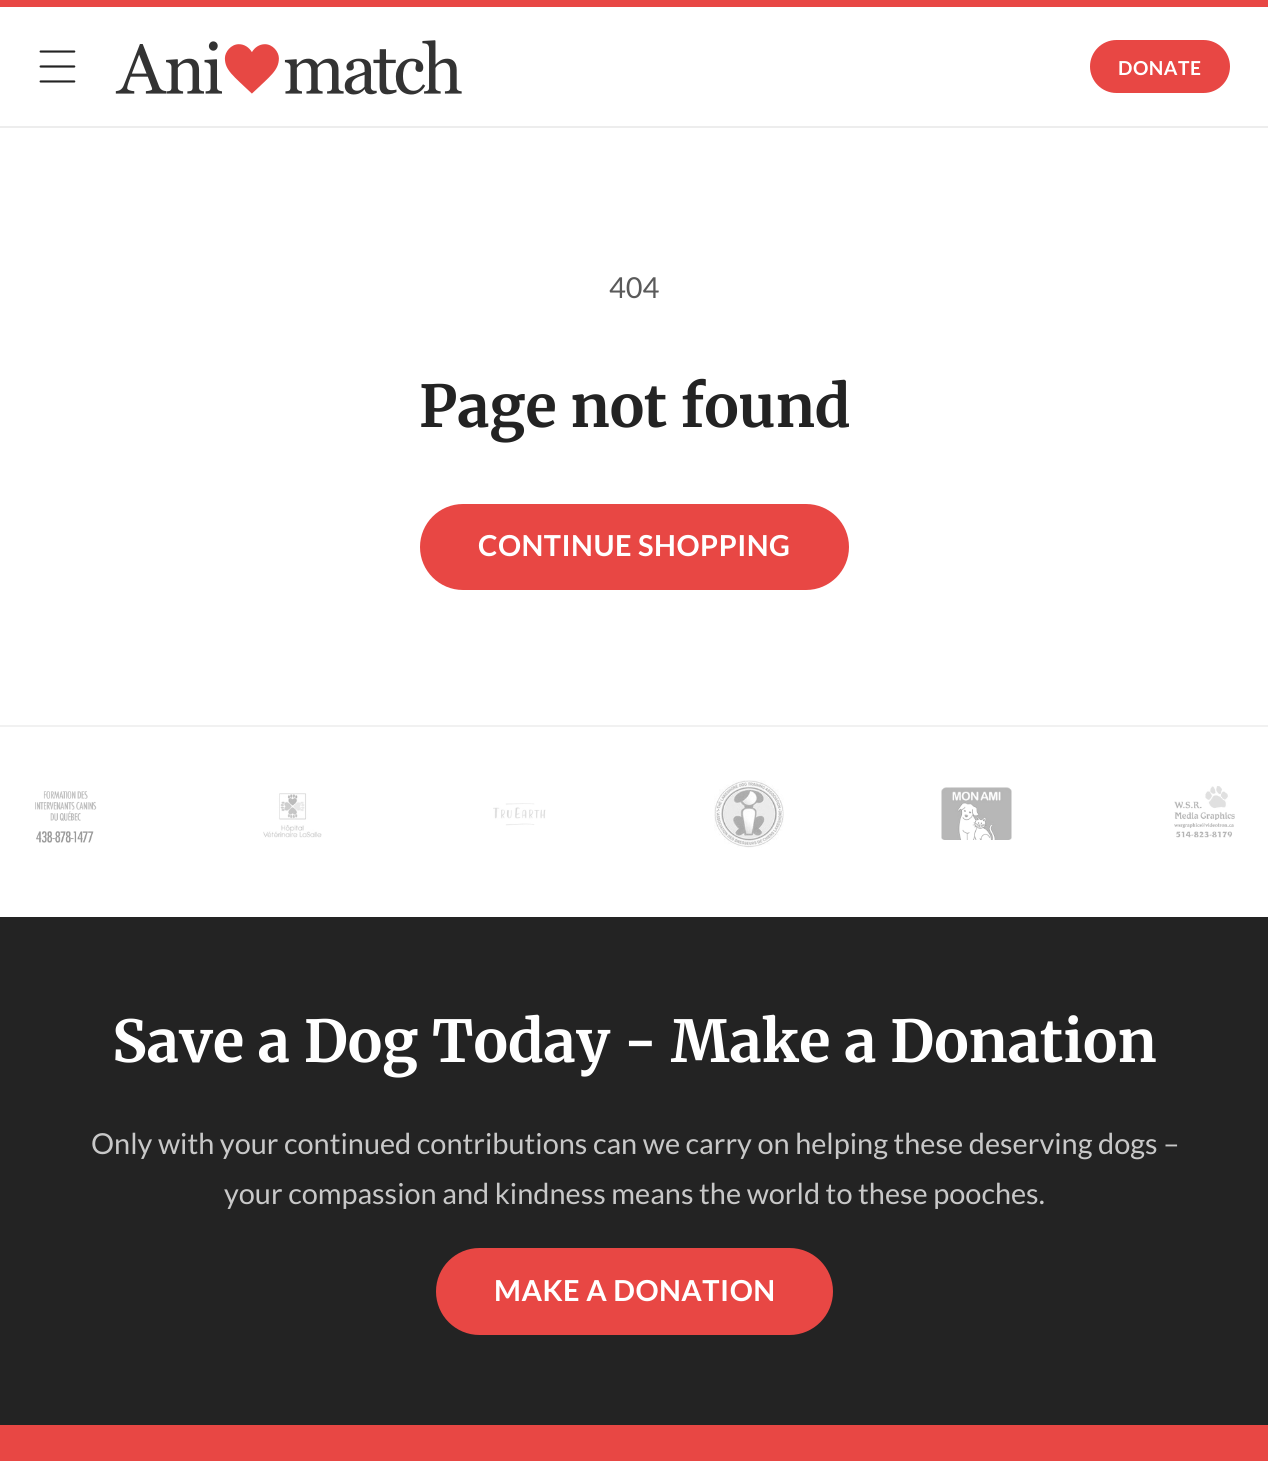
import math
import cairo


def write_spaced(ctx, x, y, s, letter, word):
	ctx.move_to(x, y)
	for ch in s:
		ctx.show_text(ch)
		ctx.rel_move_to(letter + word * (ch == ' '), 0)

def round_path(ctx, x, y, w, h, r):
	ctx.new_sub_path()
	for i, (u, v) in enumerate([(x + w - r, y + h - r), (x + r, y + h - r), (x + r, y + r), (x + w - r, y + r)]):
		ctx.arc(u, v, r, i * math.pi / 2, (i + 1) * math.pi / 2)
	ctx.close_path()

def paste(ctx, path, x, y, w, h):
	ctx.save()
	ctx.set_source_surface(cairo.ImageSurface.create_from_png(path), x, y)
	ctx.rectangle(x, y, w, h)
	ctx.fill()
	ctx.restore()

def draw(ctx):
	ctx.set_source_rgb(1, 1, 1)
	ctx.paint()
	ctx.set_source_rgb(0.929, 0.929, 0.929)
	ctx.rectangle(0, 126, 1268, 2)
	ctx.fill()
	ctx.set_source_rgb(0.91, 0.278, 0.267)
	ctx.rectangle(0, 0, 1268, 7)
	ctx.fill()
	paste(ctx, 'media/1.png', 39, 50, 37, 33)
	paste(ctx, 'media/2.png', 115, 40, 347, 55)
	round_path(ctx, 1090, 40, 140, 53, 26.5)
	ctx.fill()
	ctx.select_font_face('Lato', cairo.FONT_SLANT_NORMAL, cairo.FONT_WEIGHT_BOLD)
	ctx.set_font_size(19.25)
	ctx.set_source_rgb(1, 1, 1)
	write_spaced(ctx, 1118, 75, 'DONATE', 0.5, 0)
	ctx.select_font_face('Lato')
	ctx.set_font_size(28.9)
	ctx.set_source_rgb(0.353, 0.353, 0.353)
	ctx.move_to(609, 298)
	ctx.show_text('404')
	ctx.select_font_face('Merriweather', cairo.FONT_SLANT_NORMAL, cairo.FONT_WEIGHT_BOLD)
	ctx.set_font_size(57.75)
	ctx.set_source_rgb(0.137, 0.137, 0.137)
	ctx.move_to(419, 427)
	ctx.show_text('Page not found')
	ctx.set_source_rgb(0.91, 0.278, 0.267)
	round_path(ctx, 420, 504, 429, 86, 43)
	ctx.fill()
	ctx.select_font_face('Lato', cairo.FONT_SLANT_NORMAL, cairo.FONT_WEIGHT_BOLD)
	ctx.set_font_size(28.9)
	ctx.set_source_rgb(1, 1, 1)
	write_spaced(ctx, 478, 556, 'CONTINUE SHOPPING', 0.5, 0)
	ctx.set_source_rgb(0.945, 0.945, 0.945)
	ctx.rectangle(0, 725, 1268, 2)
	ctx.fill()
	paste(ctx, 'media/3.png', 35, 791, 62, 52)
	paste(ctx, 'media/4.png', 263, 793, 59, 45)
	paste(ctx, 'media/5.png', 493, 803, 53, 23)
	paste(ctx, 'media/6.png', 714, 780, 70, 68)
	paste(ctx, 'media/7.png', 941, 787, 71, 53)
	paste(ctx, 'media/8.png', 1174, 786, 61, 52)
	ctx.set_source_rgb(0.137, 0.137, 0.137)
	ctx.rectangle(0, 917, 1268, 508)
	ctx.fill()
	ctx.select_font_face('Merriweather', cairo.FONT_SLANT_NORMAL, cairo.FONT_WEIGHT_BOLD)
	ctx.set_font_size(57.75)
	ctx.set_source_rgb(1, 1, 1)
	ctx.move_to(112, 1062)
	ctx.show_text('Save a Dog Today - Make a Donation')
	ctx.select_font_face('Lato')
	ctx.set_font_size(28.9)
	ctx.set_source_rgb(0.784, 0.784, 0.784)
	ctx.move_to(91, 1154)
	ctx.show_text('Only with your continued contributions can we carry on helping these deserving dogs –')
	ctx.move_to(224, 1204)
	ctx.show_text('your compassion and kindness means the world to these pooches.')
	ctx.set_source_rgb(0.91, 0.278, 0.267)
	round_path(ctx, 436, 1248, 397, 87, 43.5)
	ctx.fill()
	ctx.select_font_face('Lato', cairo.FONT_SLANT_NORMAL, cairo.FONT_WEIGHT_BOLD)
	ctx.set_source_rgb(1, 1, 1)
	write_spaced(ctx, 494, 1301, 'MAKE A DONATION', 0.5, 0)
	ctx.set_source_rgb(0.91, 0.278, 0.267)
	ctx.rectangle(0, 1425, 1268, 36)
	ctx.fill()


surface = cairo.ImageSurface(cairo.FORMAT_RGB24, 1268, 1461)
ctx = cairo.Context(surface)
options = cairo.FontOptions()
options.set_hint_metrics(cairo.HINT_METRICS_OFF)
options.set_hint_style(cairo.HINT_STYLE_NONE)
ctx.set_font_options(options)
ctx.set_miter_limit(4)
draw(ctx)
surface.write_to_png('image.png')
